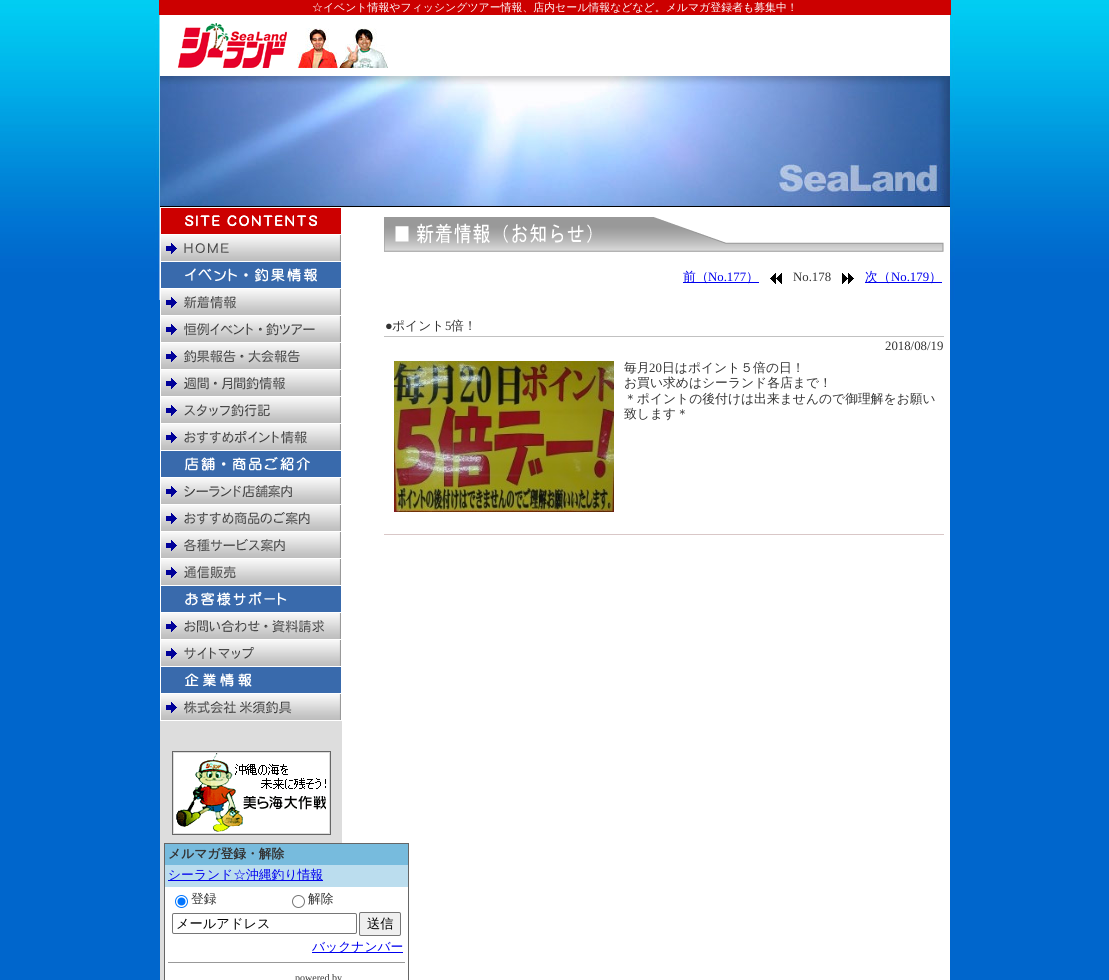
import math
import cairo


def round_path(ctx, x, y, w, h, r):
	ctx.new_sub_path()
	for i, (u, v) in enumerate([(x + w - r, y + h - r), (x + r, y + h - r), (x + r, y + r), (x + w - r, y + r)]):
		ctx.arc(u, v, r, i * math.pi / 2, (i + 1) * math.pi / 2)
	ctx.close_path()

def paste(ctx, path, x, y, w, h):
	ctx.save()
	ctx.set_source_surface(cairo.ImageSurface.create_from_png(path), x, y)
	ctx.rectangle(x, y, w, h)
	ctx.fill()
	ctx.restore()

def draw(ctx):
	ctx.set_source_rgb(0, 0.4, 0.8)
	ctx.paint()
	paste(ctx, 'media/1.png', 0, 0, 1109, 300)
	ctx.set_source_rgb(0.8, 0, 0)
	ctx.rectangle(159, 0, 792, 15)
	ctx.fill()
	ctx.select_font_face('WenQuanYi Zen Hei Medium')
	ctx.set_font_size(10.9)
	ctx.set_source_rgb(1, 1, 1)
	ctx.move_to(312, 11)
	ctx.show_text('☆イベント情報やフィッシングツアー情報、店内セール情報などなど。メルマガ登録者も募集中！')
	ctx.rectangle(160, 15, 790, 61)
	ctx.fill()
	paste(ctx, 'media/2.png', 178, 23, 109, 45)
	paste(ctx, 'media/3.png', 297, 28, 91, 40)
	ctx.rectangle(342, 207, 608, 773)
	ctx.fill()
	ctx.set_source_rgb(0.867, 0.867, 0.867)
	ctx.rectangle(160, 721, 182, 259)
	ctx.fill()
	paste(ctx, 'media/4.png', 160, 76, 790, 130)
	ctx.set_source_rgb(0, 0, 0)
	ctx.rectangle(160, 206, 790, 1)
	ctx.fill()
	paste(ctx, 'media/5.png', 384, 217, 560, 35)
	ctx.set_source_rgb(0, 0, 0.933)
	ctx.rectangle(683, 282, 76, 1)
	ctx.fill()
	ctx.set_font_size(12.8)
	ctx.move_to(683, 281)
	ctx.show_text('前（')
	ctx.select_font_face('Liberation Serif')
	ctx.move_to(708, 281)
	ctx.show_text('No.177')
	ctx.select_font_face('WenQuanYi Zen Hei Medium')
	ctx.move_to(746, 281)
	ctx.show_text('）')
	paste(ctx, 'media/6.png', 770, 273, 12, 11)
	ctx.select_font_face('Liberation Serif')
	ctx.set_source_rgb(0.2, 0.2, 0.2)
	ctx.move_to(793, 281)
	ctx.show_text('No.178')
	paste(ctx, 'media/7.png', 842, 273, 12, 11)
	ctx.set_source_rgb(0, 0, 0.933)
	ctx.rectangle(865, 282, 77, 1)
	ctx.fill()
	ctx.select_font_face('WenQuanYi Zen Hei Medium')
	ctx.move_to(865, 281)
	ctx.show_text('次（')
	ctx.select_font_face('Liberation Serif')
	ctx.move_to(891, 281)
	ctx.show_text('No.179')
	ctx.select_font_face('WenQuanYi Zen Hei Medium')
	ctx.move_to(929, 281)
	ctx.show_text('）')
	ctx.select_font_face('Liberation Serif')
	ctx.set_source_rgb(0.2, 0.2, 0.2)
	ctx.move_to(385, 330)
	ctx.show_text('●')
	ctx.select_font_face('WenQuanYi Zen Hei Medium')
	ctx.move_to(392, 330)
	ctx.show_text('ポイント')
	ctx.select_font_face('Liberation Serif')
	ctx.move_to(445, 330)
	ctx.show_text('5')
	ctx.select_font_face('WenQuanYi Zen Hei Medium')
	ctx.move_to(451, 330)
	ctx.show_text('倍！')
	ctx.set_source_rgb(0.757, 0.757, 0.757)
	ctx.rectangle(384, 336, 560, 1)
	ctx.fill()
	ctx.select_font_face('Liberation Serif')
	ctx.set_source_rgb(0.2, 0.2, 0.2)
	ctx.move_to(885, 350)
	ctx.show_text('2018/08/19')
	paste(ctx, 'media/8.png', 394, 361, 220, 151)
	ctx.select_font_face('WenQuanYi Zen Hei Medium')
	ctx.move_to(624, 372)
	ctx.show_text('毎月')
	ctx.select_font_face('Liberation Serif')
	ctx.move_to(649, 372)
	ctx.show_text('20')
	ctx.select_font_face('WenQuanYi Zen Hei Medium')
	for x, y, s in [
		(662, 372, '日はポイント５倍の日！'),
		(624, 387, 'お買い求めはシーランド各店まで！'),
		(624, 403, '＊ポイントの後付けは出来ませんので御理解をお願い'),
		(624, 418, '致します＊'),
	]:
		ctx.move_to(x, y)
		ctx.show_text(s)
	ctx.set_source_rgb(0.851, 0.78, 0.78)
	ctx.rectangle(384, 534, 560, 1)
	ctx.fill()
	ctx.set_source_rgb(1, 1, 1)
	ctx.rectangle(160, 207, 182, 514)
	ctx.fill()
	paste(ctx, 'media/9.png', 161, 208, 180, 26)
	paste(ctx, 'media/10.png', 161, 235, 180, 26)
	paste(ctx, 'media/11.png', 161, 262, 180, 26)
	paste(ctx, 'media/12.png', 161, 289, 180, 26)
	paste(ctx, 'media/13.png', 161, 316, 180, 26)
	paste(ctx, 'media/14.png', 161, 343, 180, 26)
	paste(ctx, 'media/15.png', 161, 370, 180, 26)
	paste(ctx, 'media/16.png', 161, 397, 180, 26)
	paste(ctx, 'media/17.png', 161, 424, 180, 26)
	paste(ctx, 'media/18.png', 161, 451, 180, 26)
	paste(ctx, 'media/19.png', 161, 478, 180, 26)
	paste(ctx, 'media/20.png', 161, 505, 180, 26)
	paste(ctx, 'media/21.png', 161, 532, 180, 26)
	paste(ctx, 'media/22.png', 161, 559, 180, 26)
	paste(ctx, 'media/23.png', 161, 586, 180, 26)
	paste(ctx, 'media/24.png', 161, 613, 180, 26)
	paste(ctx, 'media/25.png', 161, 640, 180, 26)
	paste(ctx, 'media/26.png', 161, 667, 180, 26)
	paste(ctx, 'media/27.png', 161, 694, 180, 26)
	ctx.rectangle(172.5, 751.5, 158, 83)
	ctx.set_source_rgb(0.4, 0.4, 0.4)
	ctx.set_line_width(1)
	ctx.stroke()
	paste(ctx, 'media/28.png', 174, 753, 155, 80)
	ctx.rectangle(164, 843, 245, 137)
	ctx.fill()
	ctx.set_source_rgb(1, 1, 1)
	ctx.rectangle(165, 887, 243, 93)
	ctx.fill()
	ctx.set_source_rgb(0.467, 0.733, 0.867)
	ctx.rectangle(165, 844, 243, 21)
	ctx.fill()
	ctx.select_font_face('WenQuanYi Zen Hei', cairo.FONT_SLANT_NORMAL, cairo.FONT_WEIGHT_BOLD)
	ctx.set_source_rgb(0.2, 0.2, 0.2)
	ctx.move_to(168, 858)
	ctx.show_text('メルマガ登録・解除')
	ctx.set_source_rgb(0.733, 0.867, 0.933)
	ctx.rectangle(165, 865, 243, 22)
	ctx.fill()
	ctx.set_source_rgb(0, 0, 0.933)
	ctx.rectangle(168, 880, 155, 1)
	ctx.fill()
	ctx.select_font_face('WenQuanYi Zen Hei Medium')
	ctx.move_to(168, 879)
	ctx.show_text('シーランド☆沖縄釣り情報')
	ctx.set_source_rgb(0.6, 0.6, 0.6)
	ctx.rectangle(168, 962, 237, 1)
	ctx.fill()
	ctx.arc(181.5, 901.5, 6, 0, 2 * math.pi)
	ctx.set_source_rgb(0, 0.459, 1)
	ctx.stroke()
	ctx.arc(181.5, 901.5, 4, 0, 2 * math.pi)
	ctx.fill()
	ctx.set_source_rgb(0.2, 0.2, 0.2)
	ctx.move_to(191, 903)
	ctx.show_text('登録')
	ctx.new_path()
	ctx.arc(298.5, 901.5, 6, 0, 2 * math.pi)
	ctx.set_source_rgb(0.463, 0.463, 0.463)
	ctx.stroke()
	ctx.set_source_rgb(0.2, 0.2, 0.2)
	ctx.move_to(308, 903)
	ctx.show_text('解除')
	round_path(ctx, 172.5, 913.5, 184, 20, 1.5)
	ctx.set_source_rgb(0.463, 0.463, 0.463)
	ctx.stroke()
	ctx.set_font_size(13.25)
	ctx.set_source_rgb(0, 0, 0)
	ctx.move_to(176, 928)
	ctx.show_text('メールアドレス')
	ctx.set_source_rgb(0.937, 0.937, 0.937)
	round_path(ctx, 359.5, 912.5, 41, 23, 1.5)
	ctx.fill_preserve()
	ctx.set_source_rgb(0.463, 0.463, 0.463)
	ctx.stroke()
	ctx.set_source_rgb(0, 0, 0)
	ctx.move_to(367, 928)
	ctx.show_text('送信')
	ctx.set_source_rgb(0, 0, 0.933)
	ctx.rectangle(312, 952, 91, 1)
	ctx.fill()
	ctx.set_font_size(12.8)
	ctx.move_to(312, 951)
	ctx.show_text('バックナンバー')
	ctx.select_font_face('Liberation Serif')
	ctx.set_font_size(10)
	ctx.set_source_rgb(0.2, 0.2, 0.2)
	ctx.move_to(295, 981)
	ctx.show_text('powered by')


surface = cairo.ImageSurface(cairo.FORMAT_RGB24, 1109, 980)
ctx = cairo.Context(surface)
options = cairo.FontOptions()
options.set_hint_metrics(cairo.HINT_METRICS_OFF)
options.set_hint_style(cairo.HINT_STYLE_NONE)
ctx.set_font_options(options)
ctx.set_miter_limit(4)
draw(ctx)
surface.write_to_png('image.png')
